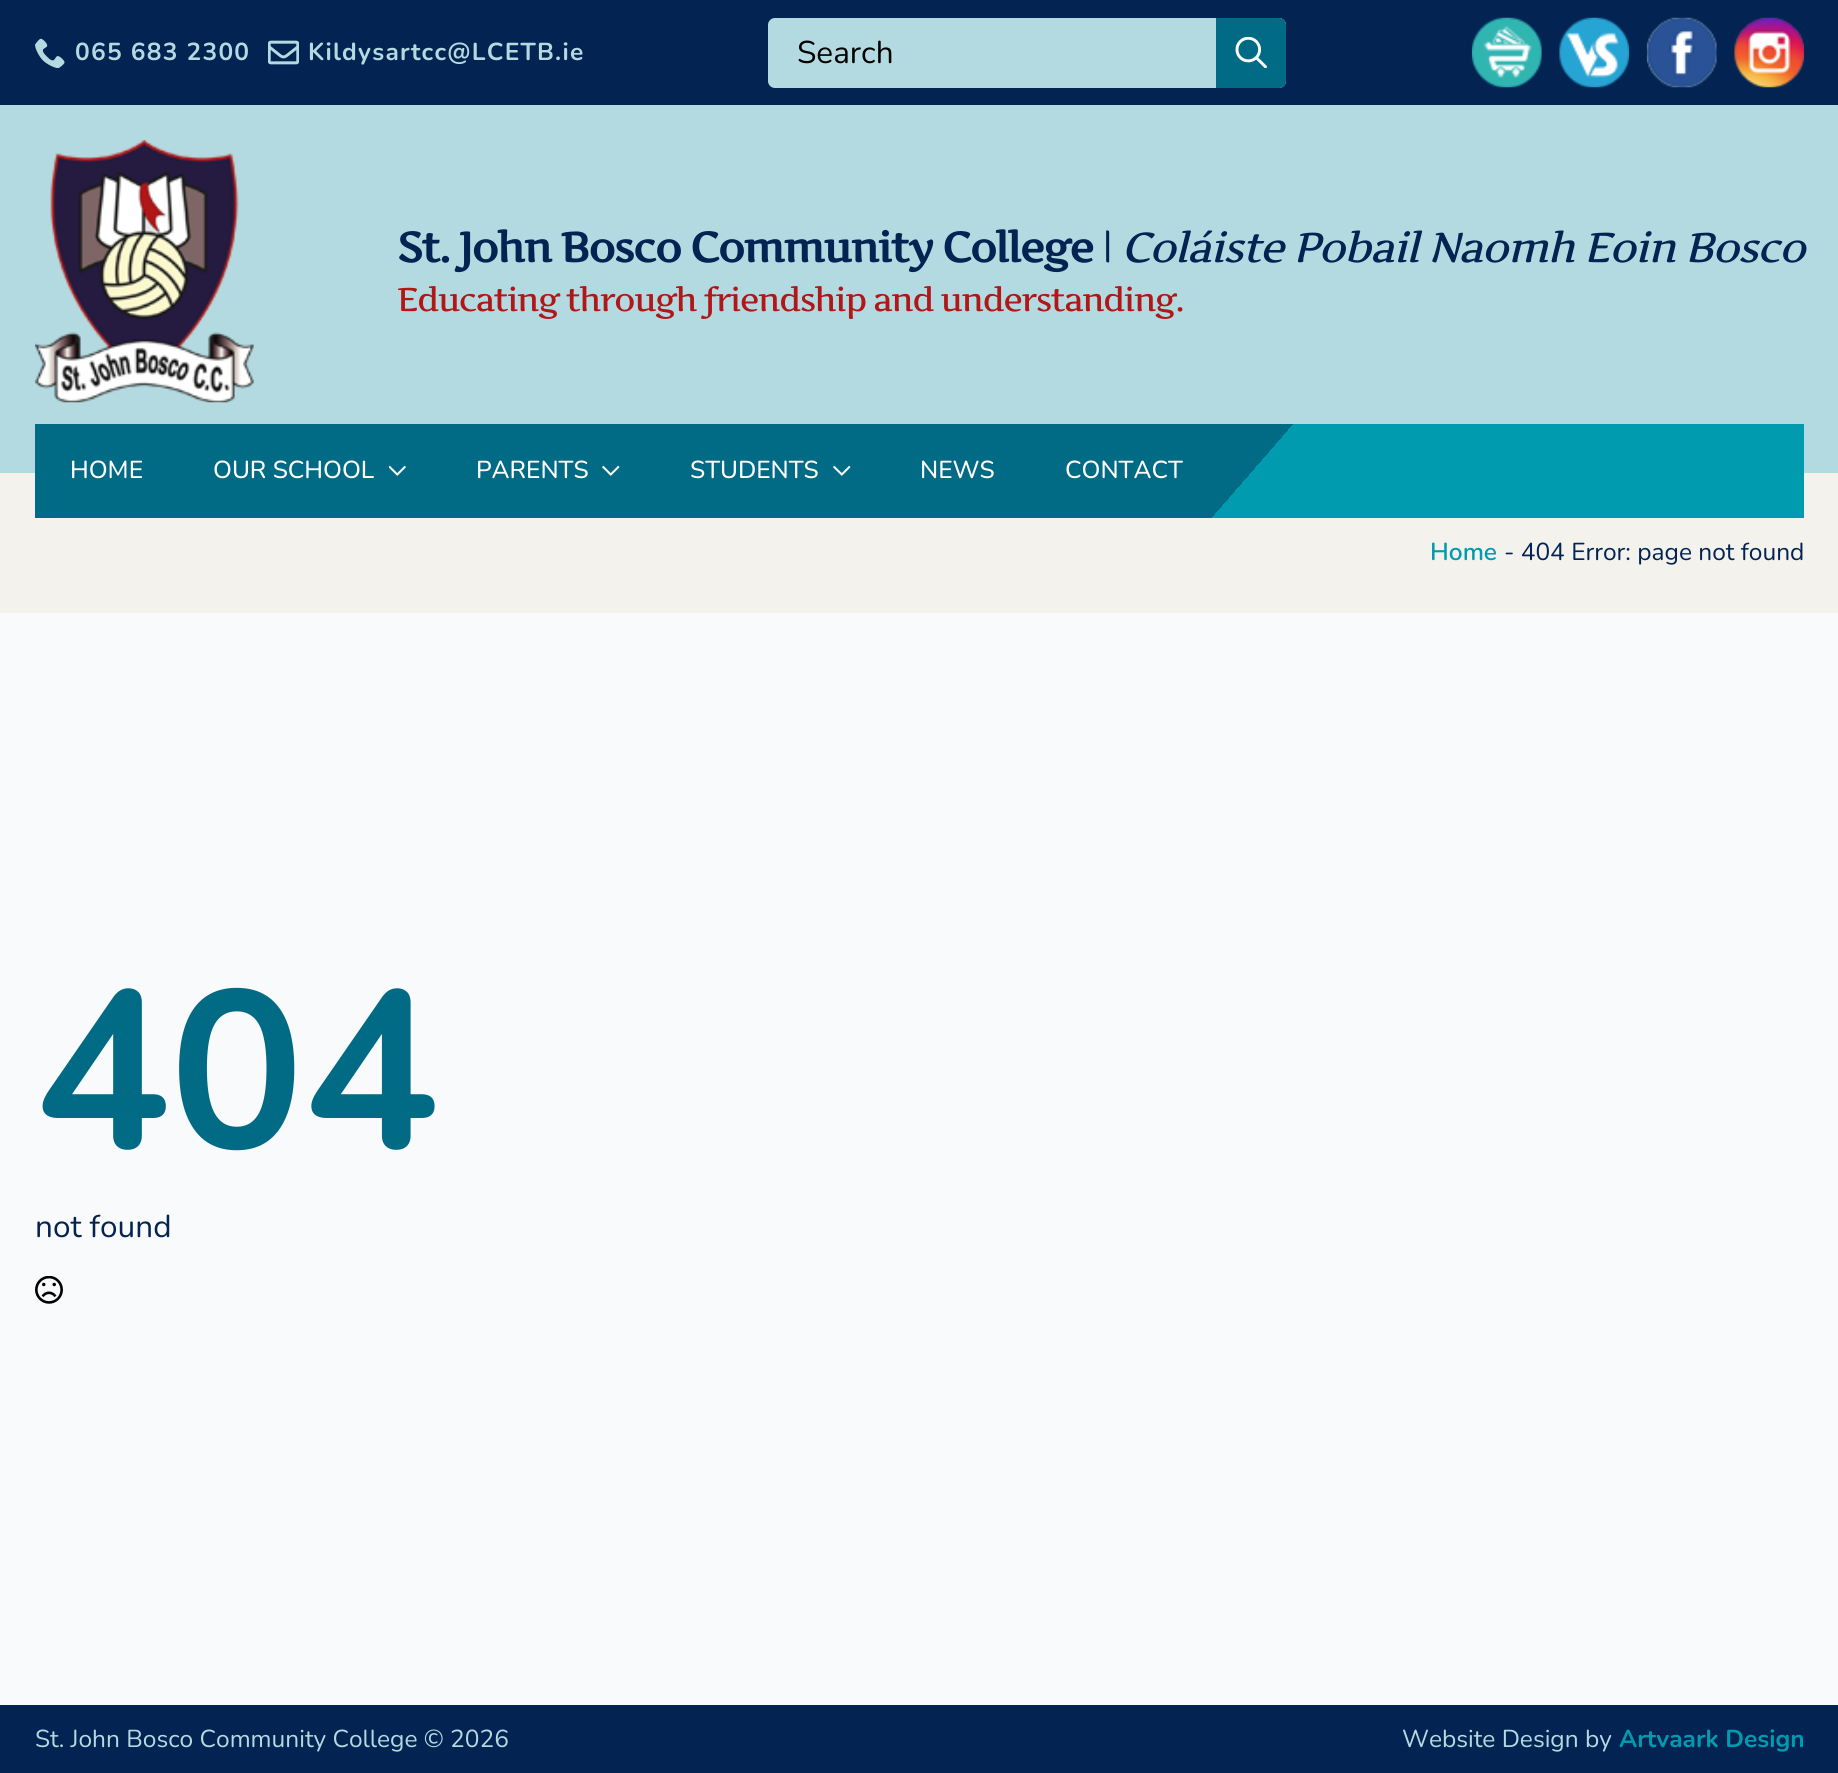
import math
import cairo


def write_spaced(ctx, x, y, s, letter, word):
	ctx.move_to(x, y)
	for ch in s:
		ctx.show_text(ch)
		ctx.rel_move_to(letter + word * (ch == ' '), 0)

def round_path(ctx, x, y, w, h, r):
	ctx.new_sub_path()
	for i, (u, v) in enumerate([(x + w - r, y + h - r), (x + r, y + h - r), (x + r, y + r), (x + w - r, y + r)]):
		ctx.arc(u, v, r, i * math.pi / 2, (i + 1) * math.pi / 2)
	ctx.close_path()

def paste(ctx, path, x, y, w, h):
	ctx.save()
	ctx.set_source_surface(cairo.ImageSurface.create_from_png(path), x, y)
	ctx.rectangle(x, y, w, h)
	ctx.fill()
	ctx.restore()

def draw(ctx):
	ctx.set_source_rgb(0.976, 0.98, 0.984)
	ctx.paint()
	ctx.set_source_rgb(0.012, 0.137, 0.322)
	ctx.rectangle(0, 0, 1838, 105)
	ctx.fill()
	paste(ctx, 'media/1.png', 35, 38, 30, 30)
	ctx.select_font_face('Nunito', cairo.FONT_SLANT_NORMAL, cairo.FONT_WEIGHT_BOLD)
	ctx.set_font_size(24.5)
	ctx.set_source_rgb(0.706, 0.855, 0.882)
	write_spaced(ctx, 75, 60, '065 683 2300', 1.25, 0)
	paste(ctx, 'media/2.png', 268, 40, 31, 25)
	write_spaced(ctx, 308, 60, 'Kildysartcc@LCETB.ie', 1.25, 0)
	round_path(ctx, 768, 18, 518, 70, 7)
	ctx.fill()
	ctx.select_font_face('Nunito')
	ctx.set_font_size(31.5)
	ctx.set_source_rgb(0, 0, 0)
	ctx.move_to(797, 63)
	ctx.show_text('Search')
	ctx.set_source_rgb(0.004, 0.42, 0.522)
	ctx.new_path()
	ctx.move_to(1216, 18)
	ctx.line_to(1279, 18)
	ctx.curve_to(1283, 18, 1286, 21, 1286, 25)
	ctx.line_to(1286, 81)
	ctx.curve_to(1286, 85, 1283, 88, 1279, 88)
	ctx.line_to(1216, 88)
	ctx.close_path()
	ctx.fill()
	paste(ctx, 'media/3.png', 1235, 37, 32, 31)
	paste(ctx, 'media/4.png', 1471, 17, 71, 71)
	paste(ctx, 'media/5.png', 1559, 17, 71, 71)
	paste(ctx, 'media/6.png', 1646, 17, 71, 71)
	paste(ctx, 'media/7.png', 1734, 17, 71, 71)
	ctx.set_source_rgb(0.706, 0.855, 0.882)
	ctx.rectangle(0, 105, 1838, 368)
	ctx.fill()
	paste(ctx, 'media/8.png', 35, 140, 219, 263)
	ctx.select_font_face('Artifika', cairo.FONT_SLANT_NORMAL, cairo.FONT_WEIGHT_BOLD)
	ctx.set_font_size(42)
	ctx.set_source_rgb(0.012, 0.137, 0.322)
	write_spaced(ctx, 397, 262, 'St. John Bosco Community College', -1.75, 0)
	ctx.select_font_face('Artifika')
	write_spaced(ctx, 1102, 262, '|', -1.75, 0)
	ctx.select_font_face('Artifika', cairo.FONT_SLANT_ITALIC)
	write_spaced(ctx, 1121, 262, 'Coláiste Pobail Naomh Eoin Bosco', -1.75, 0)
	ctx.select_font_face('Artifika')
	ctx.set_font_size(33.25)
	ctx.set_source_rgb(0.69, 0.09, 0.086)
	write_spaced(ctx, 397, 311, 'Educating through friendship and understanding.', -1.75, 0)
	ctx.set_source_rgb(0.953, 0.949, 0.929)
	ctx.rectangle(0, 473, 1838, 140)
	ctx.fill()
	gradient = cairo.LinearGradient(392, 12, 1447, 929)
	gradient.add_color_stop_rgba(0.68, 0.004, 0.42, 0.522, 1)
	gradient.add_color_stop_rgba(0.68, 0.004, 0.608, 0.686, 1)
	ctx.set_source(gradient)
	ctx.rectangle(35, 424, 1769, 94)
	ctx.fill()
	ctx.select_font_face('Nunito Medium')
	ctx.set_font_size(24.5)
	ctx.set_source_rgb(1, 1, 1)
	ctx.move_to(70, 478)
	ctx.show_text('HOME')
	ctx.move_to(213, 478)
	ctx.show_text('OUR SCHOOL')
	paste(ctx, 'media/9.png', 389, 465, 17, 11)
	ctx.move_to(476, 478)
	ctx.show_text('PARENTS')
	paste(ctx, 'media/10.png', 602, 465, 18, 11)
	ctx.move_to(690, 478)
	ctx.show_text('STUDENTS')
	paste(ctx, 'media/10.png', 833, 465, 18, 11)
	ctx.move_to(920, 478)
	ctx.show_text('NEWS')
	ctx.move_to(1065, 478)
	ctx.show_text('CONTACT')
	ctx.select_font_face('Nunito SemiBold')
	ctx.set_source_rgb(0.004, 0.608, 0.686)
	ctx.move_to(1430, 560)
	ctx.show_text('Home')
	ctx.select_font_face('Nunito')
	ctx.set_source_rgb(0.012, 0.137, 0.322)
	ctx.move_to(1504, 560)
	ctx.show_text('- 404 Error: page not found')
	ctx.select_font_face('Nunito', cairo.FONT_SLANT_NORMAL, cairo.FONT_WEIGHT_BOLD)
	ctx.set_font_size(224)
	ctx.set_source_rgb(0.004, 0.42, 0.522)
	ctx.move_to(35, 1148)
	ctx.show_text('404')
	ctx.select_font_face('Nunito')
	ctx.set_font_size(31.5)
	ctx.set_source_rgb(0.012, 0.137, 0.322)
	ctx.move_to(35, 1237)
	ctx.show_text('not found')
	paste(ctx, 'media/11.png', 35, 1276, 28, 28)
	ctx.rectangle(0, 1705, 1838, 68)
	ctx.fill()
	ctx.set_font_size(24.5)
	ctx.set_source_rgb(0.706, 0.855, 0.882)
	ctx.move_to(35, 1747)
	ctx.show_text('St. John Bosco Community College © 2026')
	ctx.move_to(1402, 1747)
	ctx.show_text('Website Design by')
	ctx.select_font_face('Nunito', cairo.FONT_SLANT_NORMAL, cairo.FONT_WEIGHT_BOLD)
	ctx.set_source_rgb(0.004, 0.608, 0.686)
	ctx.move_to(1619, 1747)
	ctx.show_text('Artvaark Design')


surface = cairo.ImageSurface(cairo.FORMAT_RGB24, 1838, 1773)
ctx = cairo.Context(surface)
options = cairo.FontOptions()
options.set_hint_metrics(cairo.HINT_METRICS_OFF)
options.set_hint_style(cairo.HINT_STYLE_NONE)
ctx.set_font_options(options)
ctx.set_miter_limit(4)
draw(ctx)
surface.write_to_png('image.png')
